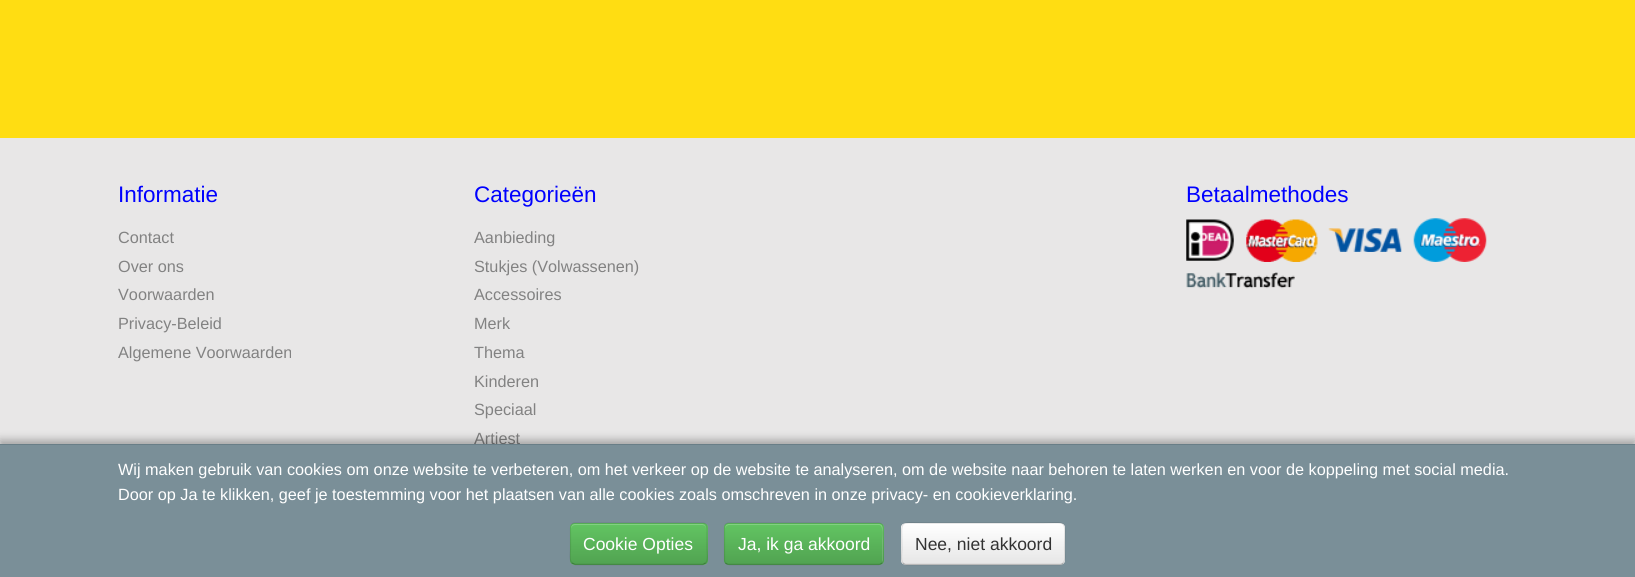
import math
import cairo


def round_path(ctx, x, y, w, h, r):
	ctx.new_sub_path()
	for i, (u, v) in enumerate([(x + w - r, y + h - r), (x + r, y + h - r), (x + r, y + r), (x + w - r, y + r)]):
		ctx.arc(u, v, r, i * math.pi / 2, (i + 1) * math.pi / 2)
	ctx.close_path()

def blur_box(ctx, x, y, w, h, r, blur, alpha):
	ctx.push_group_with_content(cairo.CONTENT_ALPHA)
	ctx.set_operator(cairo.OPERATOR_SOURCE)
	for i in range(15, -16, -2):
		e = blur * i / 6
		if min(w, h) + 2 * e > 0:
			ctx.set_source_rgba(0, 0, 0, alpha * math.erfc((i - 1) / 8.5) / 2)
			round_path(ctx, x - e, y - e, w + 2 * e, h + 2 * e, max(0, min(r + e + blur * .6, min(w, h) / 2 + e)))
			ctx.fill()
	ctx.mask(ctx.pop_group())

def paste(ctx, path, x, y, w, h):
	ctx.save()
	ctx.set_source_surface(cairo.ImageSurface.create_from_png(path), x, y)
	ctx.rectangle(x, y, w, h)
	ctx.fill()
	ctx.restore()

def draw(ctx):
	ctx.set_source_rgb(1, 0.867, 0.071)
	ctx.paint()
	ctx.set_source_rgb(0.91, 0.906, 0.906)
	ctx.rectangle(0, 138, 1635, 306)
	ctx.fill()
	ctx.select_font_face('Liberation Sans')
	ctx.set_font_size(22.5)
	ctx.set_source_rgb(0, 0, 1)
	ctx.move_to(118, 202)
	ctx.show_text('Informatie')
	ctx.set_font_size(16.25)
	ctx.set_source_rgb(0.51, 0.51, 0.51)
	for x, y, s in [
		(118, 243, 'Contact'),
		(118, 272, 'Over ons'),
		(118, 300, 'Voorwaarden'),
		(118, 329, 'Privacy-Beleid'),
		(118, 358, 'Algemene Voorwaarden'),
	]:
		ctx.move_to(x, y)
		ctx.show_text(s)
	ctx.set_font_size(22.5)
	ctx.set_source_rgb(0, 0, 1)
	ctx.move_to(474, 202)
	ctx.show_text('Categorieën')
	ctx.set_font_size(16.25)
	ctx.set_source_rgb(0.51, 0.51, 0.51)
	for x, y, s in [
		(474, 243, 'Aanbieding'),
		(474, 272, 'Stukjes (Volwassenen)'),
		(474, 300, 'Accessoires'),
		(474, 329, 'Merk'),
		(474, 358, 'Thema'),
		(474, 387, 'Kinderen'),
		(474, 415, 'Speciaal'),
		(474, 444, 'Artiest'),
	]:
		ctx.move_to(x, y)
		ctx.show_text(s)
	ctx.set_font_size(22.5)
	ctx.set_source_rgb(0, 0, 1)
	ctx.move_to(1186, 202)
	ctx.show_text('Betaalmethodes')
	paste(ctx, 'media/1.png', 1186, 219, 48, 42)
	paste(ctx, 'media/2.png', 1246, 219, 72, 43)
	paste(ctx, 'media/3.png', 1328, 228, 74, 24)
	paste(ctx, 'media/4.png', 1413, 218, 74, 44)
	paste(ctx, 'media/5.png', 1186, 272, 109, 17)
	ctx.set_source_rgb(0, 0, 0)
	blur_box(ctx, 0, 440, 1635, 134, 0, 4.5, 0.3)
	ctx.set_source_rgb(0.478, 0.561, 0.596)
	ctx.rectangle(0, 445, 1635, 132)
	ctx.fill()
	ctx.set_source_rgb(0.412, 0.494, 0.529)
	ctx.rectangle(0, 444, 1635, 1)
	ctx.fill()
	ctx.set_font_size(16.25)
	ctx.set_source_rgb(1, 1, 1)
	ctx.move_to(118, 475)
	ctx.show_text('Wij maken gebruik van cookies om onze website te verbeteren, om het verkeer op de website te analyseren, om de website naar behoren te laten werken en voor de koppeling met social media.')
	ctx.move_to(118, 500)
	ctx.show_text('Door op Ja te klikken, geef je toestemming voor het plaatsen van alle cookies zoals omschreven in onze privacy- en cookieverklaring.')
	ctx.set_source_rgb(0.357, 0.718, 0.357)
	round_path(ctx, 570, 523, 138, 42, 5)
	ctx.fill()
	ctx.save()
	round_path(ctx, 570, 523, 138, 42, 5)
	ctx.clip()
	gradient = cairo.LinearGradient(639, 524, 639, 564)
	gradient.add_color_stop_rgba(0, 0.384, 0.769, 0.384, 1)
	gradient.add_color_stop_rgba(1, 0.318, 0.639, 0.318, 1)
	ctx.set_source(gradient)
	ctx.rectangle(570, 524, 138, 40)
	ctx.fill()
	ctx.restore()
	ctx.set_source_rgb(0.506, 0.816, 0.506)
	ctx.new_path()
	ctx.move_to(575, 525)
	ctx.line_to(702, 525)
	ctx.curve_to(705, 525, 706, 527, 706, 529)
	ctx.line_to(706, 528)
	ctx.curve_to(706, 526, 704, 524, 702, 524)
	ctx.line_to(575, 524)
	ctx.curve_to(573, 524, 571, 526, 571, 528)
	ctx.line_to(571, 529)
	ctx.curve_to(571, 527, 573, 525, 575, 525)
	ctx.close_path()
	ctx.fill()
	ctx.new_path()
	ctx.move_to(705.5, 563)
	ctx.line_to(703, 564.5)
	ctx.line_to(596, 564.5)
	ctx.line_to(575, 564.5)
	ctx.line_to(572, 563)
	ctx.set_source_rgba(0, 0, 0, 0.25)
	ctx.set_line_width(1.2)
	ctx.stroke()
	ctx.new_path()
	ctx.move_to(572, 563)
	ctx.curve_to(569, 560.5, 570.5, 552, 570.5, 549)
	ctx.line_to(570.5, 533)
	ctx.curve_to(570.5, 529.5, 569.5, 523, 575, 523)
	ctx.line_to(702.5, 523)
	ctx.curve_to(708, 523, 707, 529.5, 707, 533)
	ctx.line_to(707, 549)
	ctx.curve_to(707, 552, 708.5, 560.5, 705.5, 563)
	ctx.set_source_rgba(0, 0, 0, 0.1)
	ctx.stroke()
	ctx.set_font_size(17.5)
	ctx.set_source_rgb(1, 1, 1)
	ctx.move_to(583, 550)
	ctx.show_text('Cookie Opties')
	ctx.set_source_rgb(0.357, 0.718, 0.357)
	round_path(ctx, 724, 523, 160, 42, 5)
	ctx.fill()
	ctx.save()
	round_path(ctx, 724, 523, 160, 42, 5)
	ctx.clip()
	gradient = cairo.LinearGradient(804, 524, 804, 564)
	gradient.add_color_stop_rgba(0, 0.384, 0.769, 0.384, 1)
	gradient.add_color_stop_rgba(1, 0.318, 0.639, 0.318, 1)
	ctx.set_source(gradient)
	ctx.rectangle(724, 524, 160, 40)
	ctx.fill()
	ctx.restore()
	ctx.set_source_rgba(1, 1, 1, 0.2)
	ctx.new_path()
	ctx.move_to(729, 525)
	ctx.line_to(879, 525)
	ctx.curve_to(884, 525, 882, 538, 882, 540)
	ctx.line_to(882, 563)
	ctx.curve_to(882, 562, 883, 561, 883, 560)
	ctx.line_to(883, 528)
	ctx.curve_to(883, 526, 881, 524, 879, 524)
	ctx.line_to(729, 524)
	ctx.curve_to(727, 524, 725, 526, 725, 528)
	ctx.line_to(725, 529)
	ctx.curve_to(725, 527, 727, 525, 729, 525)
	ctx.close_path()
	ctx.fill()
	ctx.new_path()
	ctx.move_to(882, 563)
	ctx.curve_to(881, 564, 880, 564.5, 879, 564.5)
	ctx.line_to(729, 564.5)
	ctx.curve_to(727.5, 564.5, 726.5, 564, 725.5, 563)
	ctx.set_source_rgba(0, 0, 0, 0.25)
	ctx.stroke()
	ctx.new_path()
	ctx.move_to(725.5, 563)
	ctx.curve_to(725, 562.5, 724.5, 561, 724.5, 560)
	ctx.line_to(724.5, 527.5)
	ctx.curve_to(724.5, 526.5, 725, 525, 725.5, 524.5)
	ctx.curve_to(726.5, 523.5, 727.5, 523, 729, 523)
	ctx.line_to(879, 523)
	ctx.curve_to(880, 523, 881, 523.5, 882, 524.5)
	ctx.curve_to(882.5, 525, 883, 526.5, 883, 527.5)
	ctx.line_to(883, 560)
	ctx.curve_to(883, 561, 882.5, 562.5, 882, 563)
	ctx.set_source_rgba(0, 0, 0, 0.1)
	ctx.stroke()
	ctx.set_source_rgb(1, 1, 1)
	ctx.move_to(738, 550)
	ctx.show_text('Ja, ik ga akkoord')
	ctx.set_source_rgb(0.961, 0.961, 0.961)
	round_path(ctx, 901, 523, 164, 42, 5)
	ctx.fill()
	ctx.save()
	round_path(ctx, 901, 523, 164, 42, 5)
	ctx.clip()
	gradient = cairo.LinearGradient(983, 524, 983, 564)
	gradient.add_color_stop_rgba(0, 1, 1, 1, 1)
	gradient.add_color_stop_rgba(1, 0.902, 0.902, 0.902, 1)
	ctx.set_source(gradient)
	ctx.rectangle(901, 524, 164, 40)
	ctx.fill()
	ctx.restore()
	ctx.new_path()
	ctx.move_to(1063, 563)
	ctx.curve_to(1062.5, 564, 1061, 564.5, 1060, 564.5)
	ctx.line_to(906, 564.5)
	ctx.curve_to(905, 564.5, 904, 564, 903, 563)
	ctx.set_source_rgba(0, 0, 0, 0.25)
	ctx.stroke()
	ctx.new_path()
	ctx.move_to(903, 563)
	ctx.curve_to(900.5, 560.5, 902, 552, 902, 549)
	ctx.curve_to(902, 517, 896.5, 523, 932, 523)
	ctx.line_to(1034.5, 523)
	ctx.curve_to(1070, 523, 1064.5, 517, 1064.5, 549)
	ctx.curve_to(1064.5, 552, 1066, 560.5, 1063, 563)
	ctx.set_source_rgba(0, 0, 0, 0.1)
	ctx.stroke()
	ctx.set_source_rgb(0.2, 0.2, 0.2)
	ctx.move_to(915, 550)
	ctx.show_text('Nee, niet akkoord')


surface = cairo.ImageSurface(cairo.FORMAT_RGB24, 1635, 577)
ctx = cairo.Context(surface)
options = cairo.FontOptions()
options.set_hint_metrics(cairo.HINT_METRICS_OFF)
options.set_hint_style(cairo.HINT_STYLE_NONE)
ctx.set_font_options(options)
ctx.set_miter_limit(4)
draw(ctx)
surface.write_to_png('image.png')
